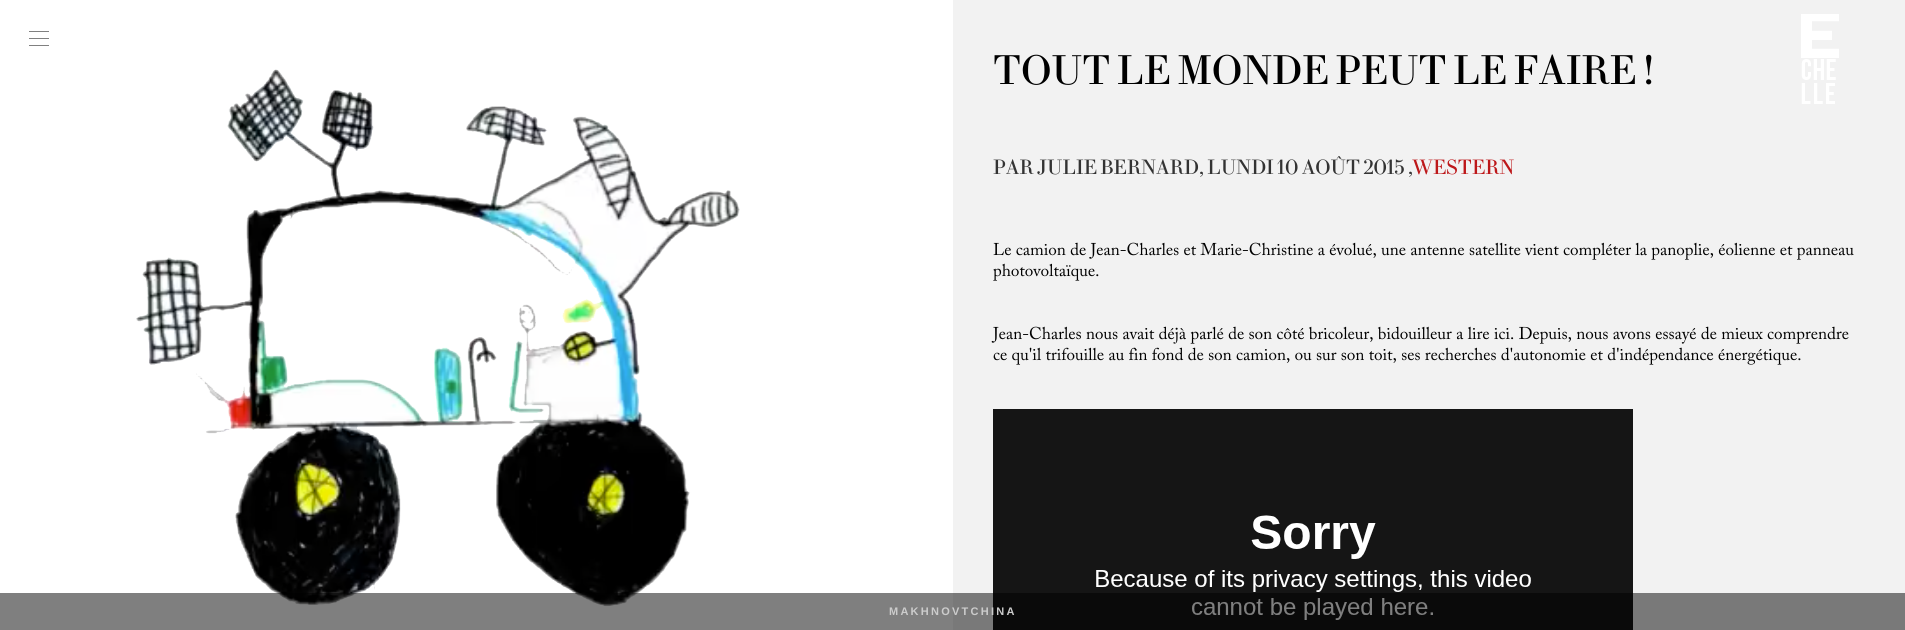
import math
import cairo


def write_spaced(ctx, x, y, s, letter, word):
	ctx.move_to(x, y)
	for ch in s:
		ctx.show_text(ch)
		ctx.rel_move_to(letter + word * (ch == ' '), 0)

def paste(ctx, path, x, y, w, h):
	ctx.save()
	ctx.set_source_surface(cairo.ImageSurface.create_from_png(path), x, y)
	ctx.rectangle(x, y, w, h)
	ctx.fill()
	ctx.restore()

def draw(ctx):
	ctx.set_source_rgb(1, 1, 1)
	ctx.paint()
	ctx.set_source_rgb(0.502, 0.502, 0.502)
	ctx.rectangle(29, 31, 20, 1)
	ctx.rectangle(29, 38, 20, 1)
	ctx.rectangle(29, 45, 20, 1)
	ctx.fill()
	ctx.set_source_rgb(0.949, 0.949, 0.949)
	ctx.rectangle(953, 0, 952, 630)
	ctx.fill()
	paste(ctx, 'media/1.png', 1801, 14, 38, 90)
	paste(ctx, 'media/2.png', 136, 69, 604, 538)
	ctx.select_font_face('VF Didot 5')
	ctx.set_font_size(40)
	ctx.set_source_rgb(0, 0, 0)
	ctx.move_to(993, 84)
	ctx.show_text('TOUT LE MONDE PEUT LE FAIRE !')
	ctx.set_font_size(20)
	ctx.set_source_rgb(0.2, 0.2, 0.2)
	ctx.move_to(993, 174)
	ctx.show_text('PAR JULIE BERNARD, LUNDI 10 AOÛT 2015 ,')
	ctx.set_source_rgb(0.741, 0.094, 0.102)
	ctx.move_to(1412, 174)
	ctx.show_text('WESTERN')
	paste(ctx, 'media/3.png', 993, 242, 861, 18)
	paste(ctx, 'media/4.png', 993, 263, 106, 18)
	paste(ctx, 'media/5.png', 991, 326, 858, 18)
	paste(ctx, 'media/6.png', 993, 347, 808, 18)
	paste(ctx, 'media/7.png', 993, 409, 640, 221)
	ctx.set_source_rgba(0, 0, 0, 0.5)
	ctx.rectangle(0, 593, 1905, 37)
	ctx.fill()
	ctx.select_font_face('Liberation Sans', cairo.FONT_SLANT_NORMAL, cairo.FONT_WEIGHT_BOLD)
	ctx.set_font_size(11)
	ctx.set_source_rgb(0.8, 0.8, 0.8)
	write_spaced(ctx, 889, 615, 'MAKHNOVTCHINA', 2.25, 0)


surface = cairo.ImageSurface(cairo.FORMAT_RGB24, 1905, 630)
ctx = cairo.Context(surface)
options = cairo.FontOptions()
options.set_hint_metrics(cairo.HINT_METRICS_OFF)
options.set_hint_style(cairo.HINT_STYLE_NONE)
ctx.set_font_options(options)
ctx.set_miter_limit(4)
draw(ctx)
surface.write_to_png('image.png')
